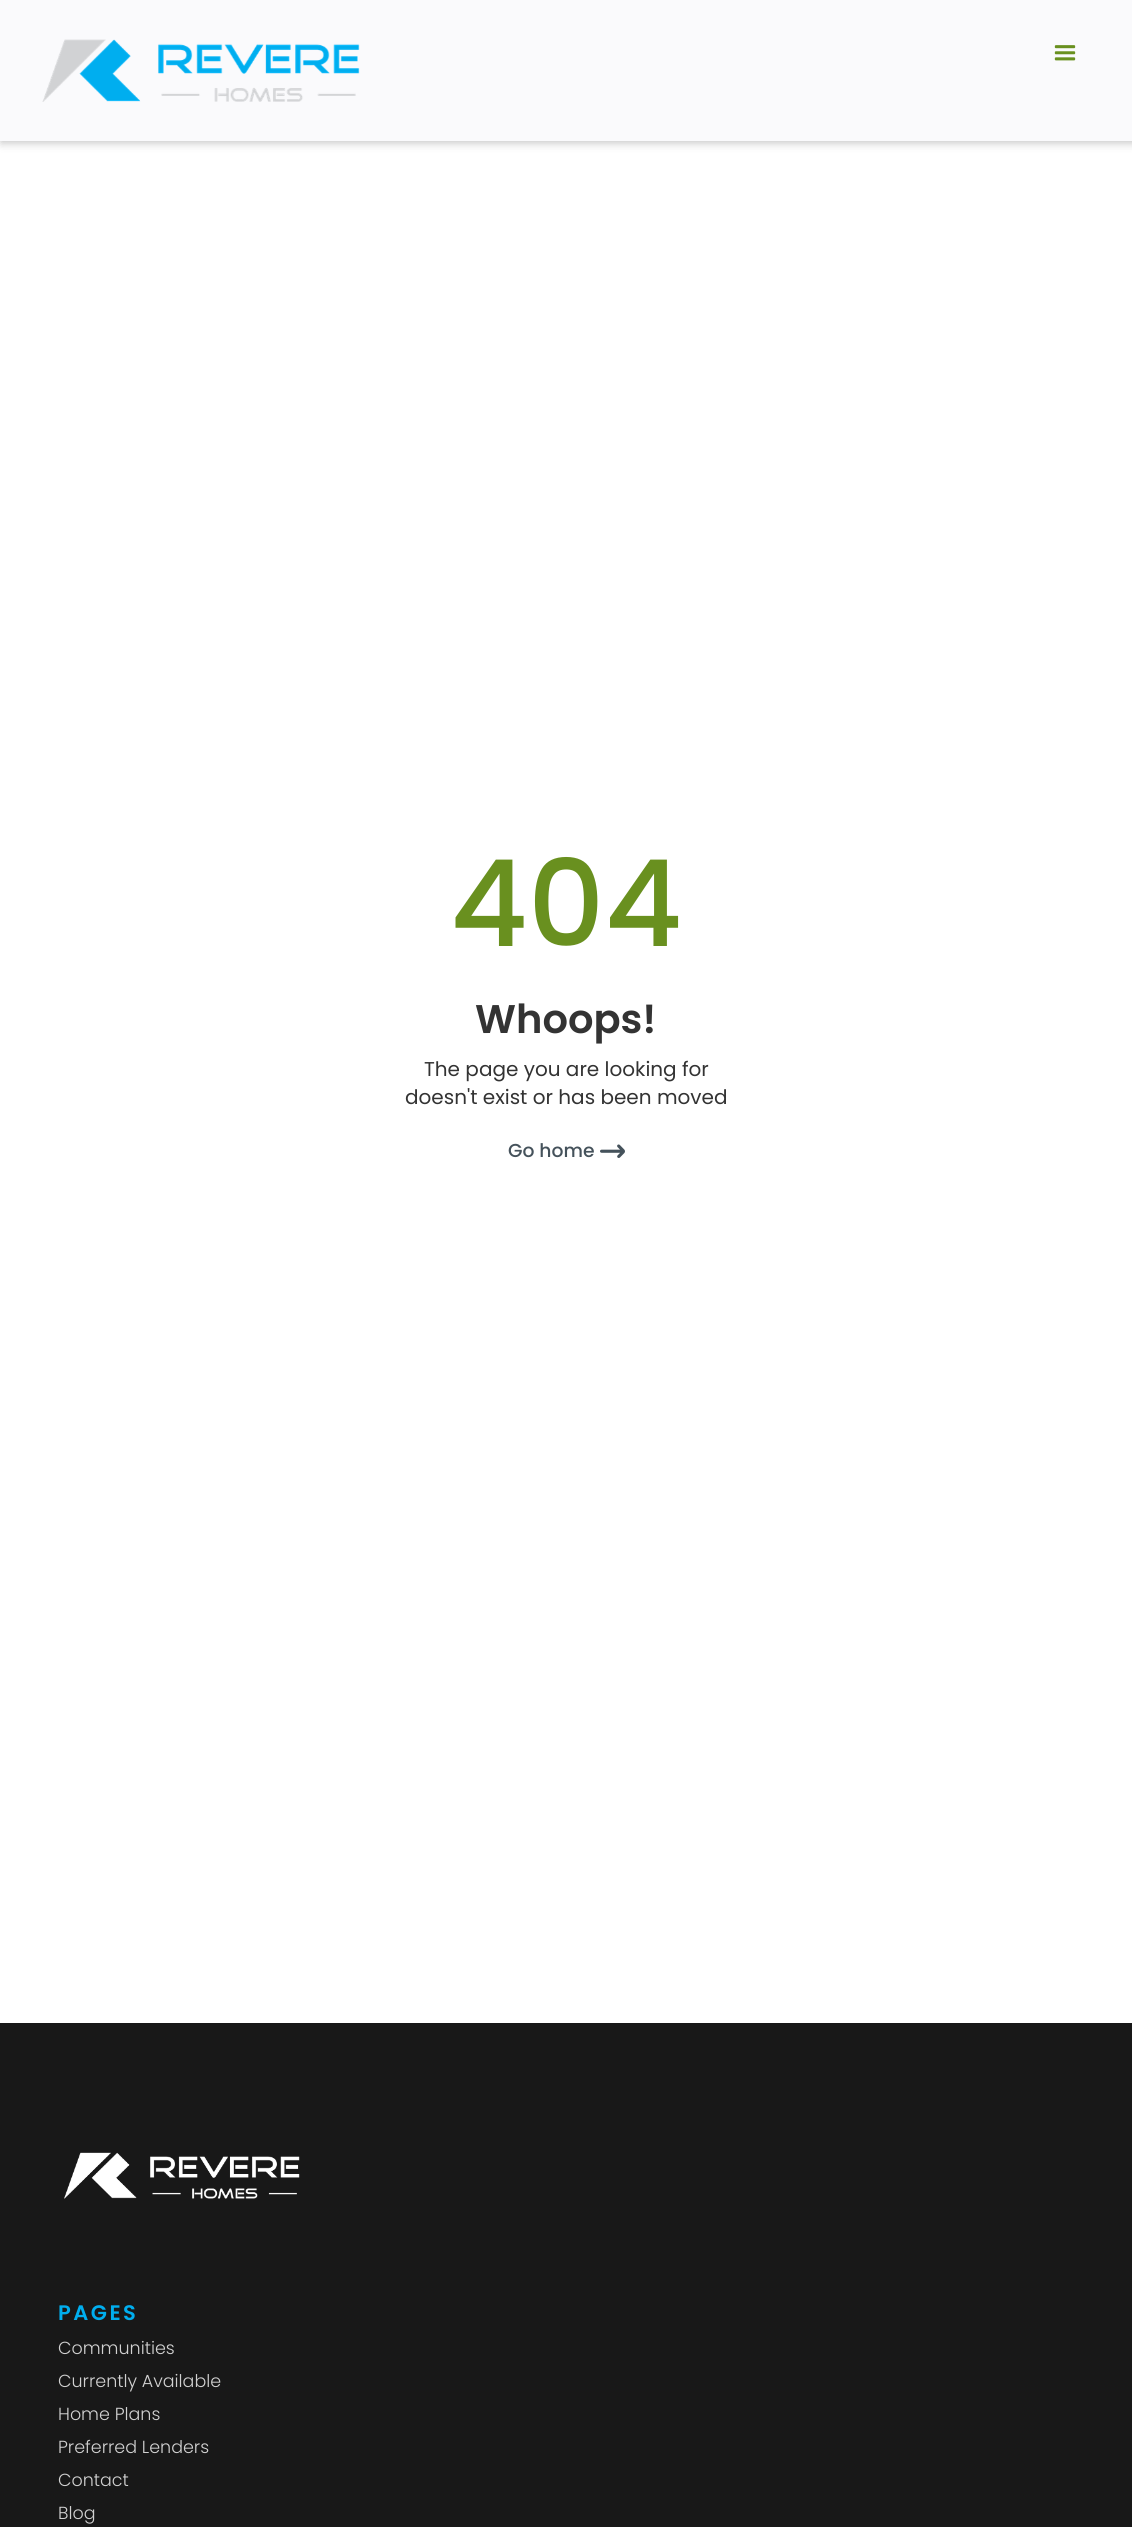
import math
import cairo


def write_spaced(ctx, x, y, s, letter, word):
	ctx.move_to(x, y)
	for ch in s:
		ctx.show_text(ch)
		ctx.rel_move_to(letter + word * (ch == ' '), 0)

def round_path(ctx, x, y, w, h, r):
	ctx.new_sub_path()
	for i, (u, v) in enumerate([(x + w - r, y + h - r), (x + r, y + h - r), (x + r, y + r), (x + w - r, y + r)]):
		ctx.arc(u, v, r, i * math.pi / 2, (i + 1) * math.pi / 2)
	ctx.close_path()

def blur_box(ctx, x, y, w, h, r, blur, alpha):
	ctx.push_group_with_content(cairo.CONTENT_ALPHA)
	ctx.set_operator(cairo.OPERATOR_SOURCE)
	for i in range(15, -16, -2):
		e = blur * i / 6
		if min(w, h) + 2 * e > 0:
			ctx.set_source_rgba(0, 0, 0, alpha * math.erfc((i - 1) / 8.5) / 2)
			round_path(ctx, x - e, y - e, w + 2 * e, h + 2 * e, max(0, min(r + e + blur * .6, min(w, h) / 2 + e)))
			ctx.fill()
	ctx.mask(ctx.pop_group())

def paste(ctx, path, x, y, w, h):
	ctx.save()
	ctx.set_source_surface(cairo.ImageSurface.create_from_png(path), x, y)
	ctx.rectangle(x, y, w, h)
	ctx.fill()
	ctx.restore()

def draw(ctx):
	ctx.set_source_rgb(1, 1, 1)
	ctx.paint()
	ctx.set_source_rgb(0, 0, 0)
	blur_box(ctx, 1, 1, 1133, 142, 0, 4.5, 0.23)
	ctx.set_source_rgb(0.98, 0.98, 0.988)
	ctx.rectangle(0, 0, 1132, 141)
	ctx.fill()
	paste(ctx, 'media/1.png', 42, 39, 318, 63)
	paste(ctx, 'media/2.png', 1054, 45, 22, 16)
	ctx.select_font_face('Poppins Medium')
	ctx.set_font_size(120)
	ctx.set_source_rgb(0.412, 0.565, 0.122)
	ctx.move_to(450, 946)
	ctx.show_text('404')
	ctx.select_font_face('Poppins SemiBold')
	ctx.set_font_size(40)
	ctx.set_source_rgb(0.2, 0.2, 0.2)
	ctx.move_to(475, 1033)
	ctx.show_text('Whoops!')
	ctx.select_font_face('Poppins')
	ctx.set_font_size(20)
	ctx.move_to(424, 1076)
	ctx.show_text('The page you are looking for')
	ctx.move_to(405, 1104)
	ctx.show_text('doesn\'t exist or has been moved')
	ctx.select_font_face('Poppins Medium')
	ctx.set_font_size(18.75)
	ctx.set_source_rgb(0.271, 0.322, 0.357)
	ctx.move_to(508, 1157)
	ctx.show_text('Go home')
	paste(ctx, 'media/3.png', 600, 1144, 25, 14)
	ctx.set_source_rgb(0.094, 0.094, 0.094)
	ctx.rectangle(0, 2023, 1132, 504)
	ctx.fill()
	paste(ctx, 'media/4.png', 64, 2152, 236, 47)
	ctx.select_font_face('Poppins SemiBold')
	ctx.set_font_size(21)
	ctx.set_source_rgb(0, 0.682, 0.937)
	write_spaced(ctx, 58, 2320, 'PAGES', 2.5, 0)
	ctx.select_font_face('Poppins Light')
	ctx.set_font_size(17.5)
	ctx.set_source_rgb(0.82, 0.82, 0.82)
	for x, y, s in [
		(58, 2354, 'Communities'),
		(58, 2387, 'Currently Available'),
		(58, 2420, 'Home Plans'),
		(58, 2453, 'Preferred Lenders'),
		(58, 2486, 'Contact'),
		(58, 2519, 'Blog'),
	]:
		ctx.move_to(x, y)
		ctx.show_text(s)


surface = cairo.ImageSurface(cairo.FORMAT_RGB24, 1132, 2527)
ctx = cairo.Context(surface)
options = cairo.FontOptions()
options.set_hint_metrics(cairo.HINT_METRICS_OFF)
options.set_hint_style(cairo.HINT_STYLE_NONE)
ctx.set_font_options(options)
ctx.set_miter_limit(4)
draw(ctx)
surface.write_to_png('image.png')
